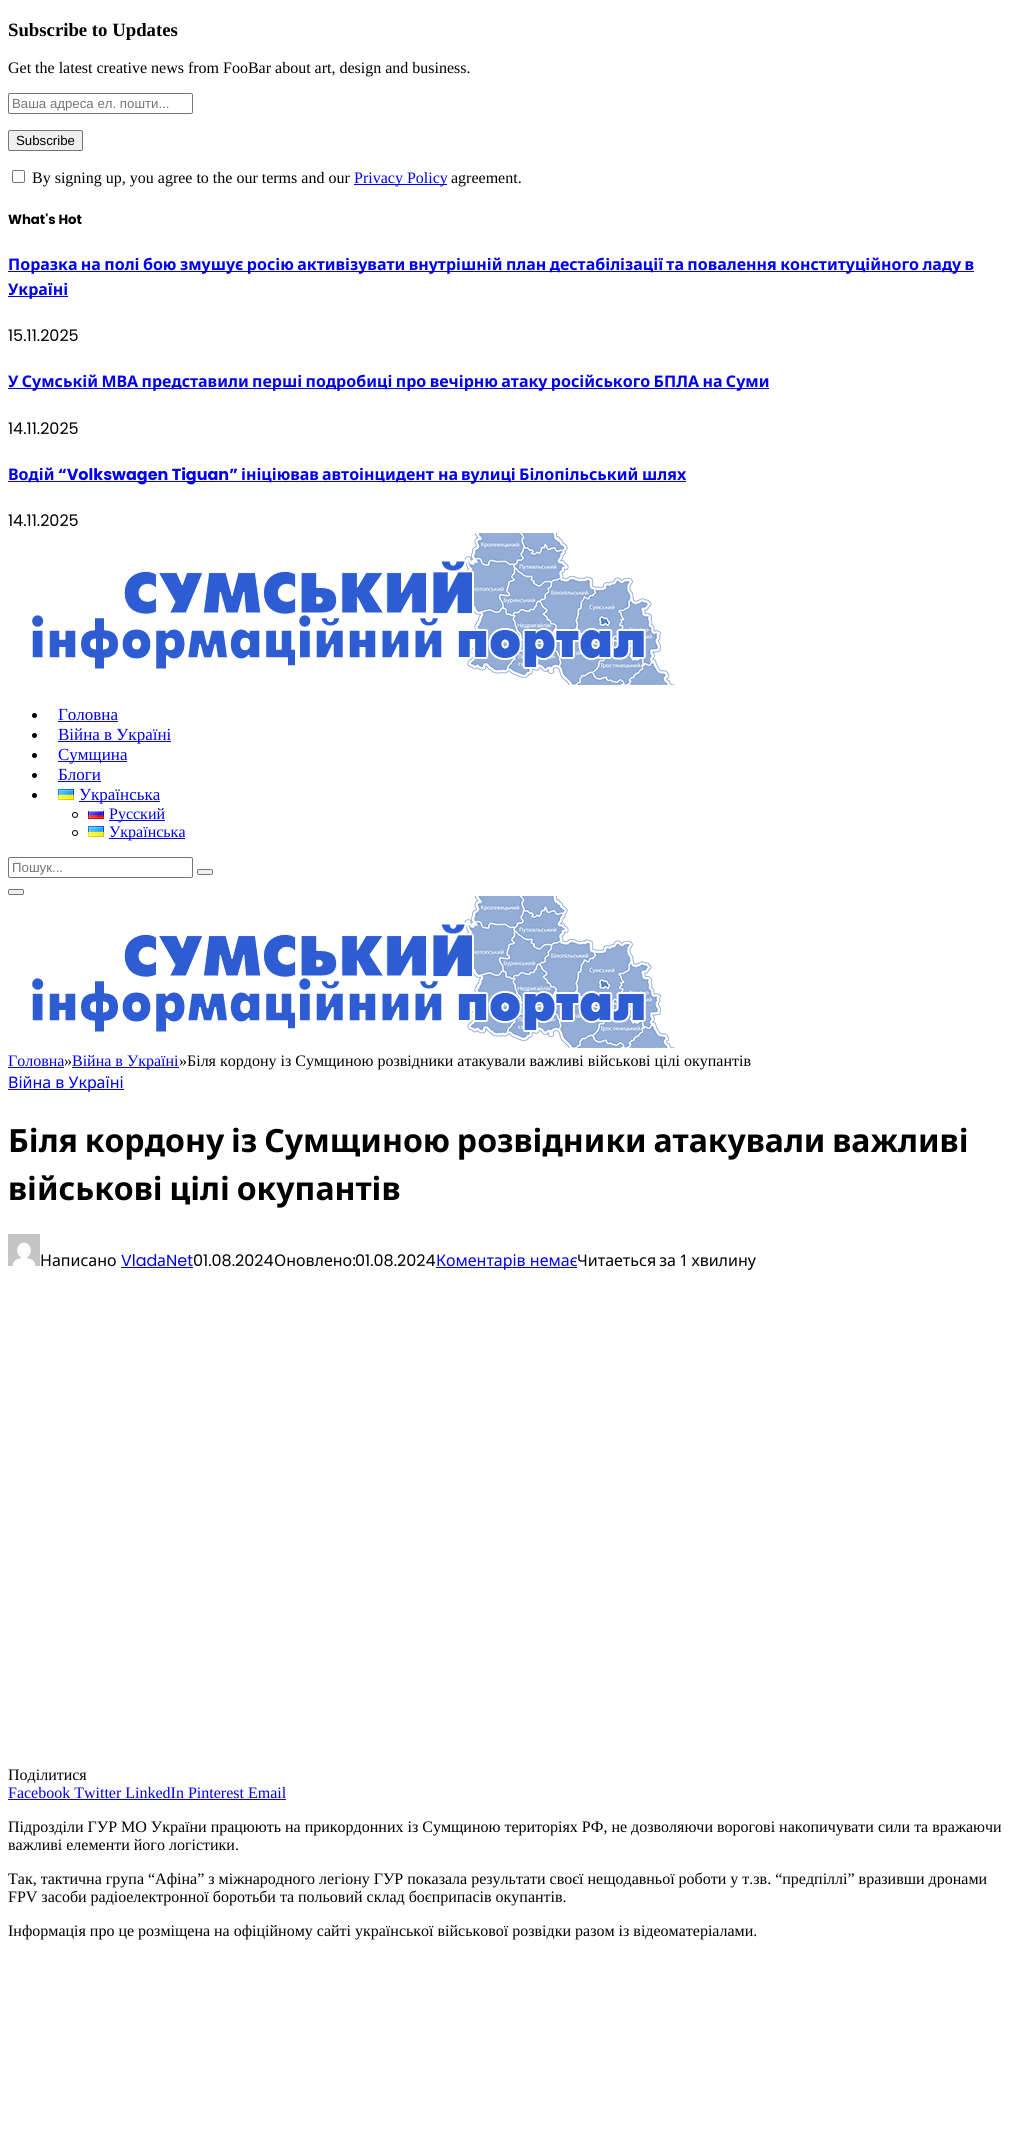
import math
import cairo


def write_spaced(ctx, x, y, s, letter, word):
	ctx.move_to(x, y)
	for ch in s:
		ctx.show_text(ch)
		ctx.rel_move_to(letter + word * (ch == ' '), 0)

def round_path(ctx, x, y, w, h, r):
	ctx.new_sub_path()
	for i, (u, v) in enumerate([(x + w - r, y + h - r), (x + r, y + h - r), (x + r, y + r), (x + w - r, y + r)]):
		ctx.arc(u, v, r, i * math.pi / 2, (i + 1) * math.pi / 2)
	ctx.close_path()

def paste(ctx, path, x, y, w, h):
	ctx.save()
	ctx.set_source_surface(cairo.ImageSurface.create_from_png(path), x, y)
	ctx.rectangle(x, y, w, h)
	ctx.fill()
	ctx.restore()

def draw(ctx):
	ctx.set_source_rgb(1, 1, 1)
	ctx.paint()
	ctx.select_font_face('Liberation Serif', cairo.FONT_SLANT_NORMAL, cairo.FONT_WEIGHT_BOLD)
	ctx.set_font_size(18.75)
	ctx.set_source_rgb(0, 0, 0)
	ctx.move_to(8, 36)
	ctx.show_text('Subscribe to Updates')
	ctx.select_font_face('Liberation Serif')
	ctx.set_font_size(16)
	ctx.move_to(8, 73)
	ctx.show_text('Get the latest creative news from FooBar about art, design and business.')
	round_path(ctx, 8.5, 93.5, 184, 20, 1.5)
	ctx.set_source_rgb(0.463, 0.463, 0.463)
	ctx.set_line_width(1)
	ctx.stroke()
	ctx.select_font_face('Liberation Sans')
	ctx.set_font_size(13.25)
	ctx.set_source_rgb(0.459, 0.459, 0.459)
	ctx.move_to(12, 108)
	ctx.show_text('Ваша адреса ел. пошти...')
	ctx.set_source_rgb(0.937, 0.937, 0.937)
	round_path(ctx, 8.5, 130.5, 74, 20, 1.5)
	ctx.fill_preserve()
	ctx.set_source_rgb(0.463, 0.463, 0.463)
	ctx.stroke()
	ctx.set_source_rgb(0, 0, 0)
	ctx.move_to(16, 145)
	ctx.show_text('Subscribe')
	round_path(ctx, 12.5, 170.5, 12, 12, 1.5)
	ctx.set_source_rgb(0.463, 0.463, 0.463)
	ctx.stroke()
	ctx.select_font_face('Liberation Serif')
	ctx.set_font_size(16)
	ctx.set_source_rgb(0, 0, 0)
	ctx.move_to(32, 183)
	ctx.show_text('By signing up, you agree to the our terms and our')
	ctx.set_source_rgb(0, 0, 0.933)
	ctx.rectangle(354, 184, 93, 1)
	ctx.fill()
	ctx.move_to(354, 183)
	ctx.show_text('Privacy Policy')
	ctx.set_source_rgb(0, 0, 0)
	ctx.move_to(451, 183)
	ctx.show_text('agreement.')
	ctx.select_font_face('Poppins', cairo.FONT_SLANT_NORMAL, cairo.FONT_WEIGHT_BOLD)
	ctx.set_font_size(13.25)
	ctx.move_to(8, 224)
	ctx.show_text('What\'s Hot')
	ctx.set_source_rgb(0, 0, 0.933)
	ctx.rectangle(8, 271, 966, 1)
	ctx.fill()
	ctx.select_font_face('Noto Sans', cairo.FONT_SLANT_NORMAL, cairo.FONT_WEIGHT_BOLD)
	ctx.set_font_size(16)
	write_spaced(ctx, 8, 270, 'Поразка на полі бою змушує росію активізувати внутрішній план дестабілізації та повалення конституційного ладу в', 0, -0.75)
	ctx.rectangle(8, 296, 60, 1)
	ctx.fill()
	ctx.move_to(8, 295)
	ctx.show_text('Україні')
	ctx.select_font_face('Poppins')
	ctx.set_source_rgb(0, 0, 0)
	ctx.move_to(8, 341)
	ctx.show_text('15.11.2025')
	ctx.set_source_rgb(0, 0, 0.933)
	ctx.rectangle(8, 388, 761, 1)
	ctx.fill()
	ctx.select_font_face('Noto Sans', cairo.FONT_SLANT_NORMAL, cairo.FONT_WEIGHT_BOLD)
	write_spaced(ctx, 8, 387, 'У Сумській МВА представили перші подробиці про вечірню атаку російського БПЛА на Суми', 0, -0.75)
	ctx.select_font_face('Poppins')
	ctx.set_source_rgb(0, 0, 0)
	ctx.move_to(8, 434)
	ctx.show_text('14.11.2025')
	ctx.set_source_rgb(0, 0, 0.933)
	ctx.rectangle(8, 481, 678, 1)
	ctx.fill()
	ctx.select_font_face('Noto Sans', cairo.FONT_SLANT_NORMAL, cairo.FONT_WEIGHT_BOLD)
	ctx.move_to(8, 480)
	ctx.show_text('Водій')
	ctx.select_font_face('Poppins', cairo.FONT_SLANT_NORMAL, cairo.FONT_WEIGHT_BOLD)
	ctx.move_to(58, 480)
	ctx.show_text('“Volkswagen Tiguan”')
	ctx.select_font_face('Noto Sans', cairo.FONT_SLANT_NORMAL, cairo.FONT_WEIGHT_BOLD)
	for x, y, s in [
		(241, 480, 'ініціював'),
		(322, 480, 'автоінцидент'),
		(438, 480, 'на'),
		(461, 480, 'вулиці'),
		(519, 480, 'Білопільський'),
		(642, 480, 'шлях'),
	]:
		ctx.move_to(x, y)
		ctx.show_text(s)
	ctx.select_font_face('Poppins')
	ctx.set_source_rgb(0, 0, 0)
	ctx.move_to(8, 526)
	ctx.show_text('14.11.2025')
	paste(ctx, 'media/1.png', 32, 533, 643, 152)
	ctx.arc(34.5, 715.5, 2.5, 0, 2 * math.pi)
	ctx.fill()
	ctx.select_font_face('Liberation Serif')
	ctx.set_font_size(17)
	ctx.set_source_rgb(0, 0, 0.933)
	ctx.move_to(58, 720)
	ctx.show_text('Головна')
	ctx.rectangle(58, 721, 60, 1)
	ctx.fill()
	ctx.set_source_rgb(0, 0, 0)
	ctx.arc(34.5, 735.5, 2.5, 0, 2 * math.pi)
	ctx.fill()
	ctx.set_source_rgb(0, 0, 0.933)
	ctx.rectangle(58, 741, 113, 1)
	ctx.fill()
	ctx.move_to(58, 740)
	ctx.show_text('Війна в Україні')
	ctx.set_source_rgb(0, 0, 0)
	ctx.new_path()
	ctx.arc(34.5, 755.5, 2.5, 0, 2 * math.pi)
	ctx.fill()
	ctx.set_source_rgb(0, 0, 0.933)
	ctx.rectangle(58, 761, 69, 1)
	ctx.fill()
	ctx.move_to(58, 760)
	ctx.show_text('Сумщина')
	ctx.set_source_rgb(0, 0, 0)
	ctx.new_path()
	ctx.arc(34.5, 775.5, 2.5, 0, 2 * math.pi)
	ctx.fill()
	ctx.set_source_rgb(0, 0, 0.933)
	ctx.move_to(58, 780)
	ctx.show_text('Блоги')
	ctx.rectangle(58, 781, 43, 1)
	ctx.fill()
	ctx.set_source_rgb(0, 0, 0)
	ctx.arc(34.5, 795.5, 2.5, 0, 2 * math.pi)
	ctx.fill()
	paste(ctx, 'media/2.png', 58, 789, 16, 11)
	ctx.set_source_rgb(0, 0, 0.933)
	ctx.rectangle(79, 801, 81, 1)
	ctx.fill()
	ctx.move_to(79, 800)
	ctx.show_text('Українська')
	ctx.new_path()
	ctx.arc(75, 815, 2.5, 0, 2 * math.pi)
	ctx.set_source_rgb(0, 0, 0)
	ctx.stroke()
	paste(ctx, 'media/3.png', 88, 808, 16, 11)
	ctx.set_source_rgb(0, 0, 0.933)
	ctx.rectangle(109, 820, 56, 1)
	ctx.fill()
	ctx.set_font_size(16)
	ctx.move_to(109, 819)
	ctx.show_text('Русский')
	ctx.new_path()
	ctx.arc(75, 833, 2.5, 0, 2 * math.pi)
	ctx.set_source_rgb(0, 0, 0)
	ctx.stroke()
	paste(ctx, 'media/2.png', 88, 826, 16, 11)
	ctx.set_source_rgb(0, 0, 0.933)
	ctx.rectangle(109, 838, 76, 1)
	ctx.fill()
	ctx.move_to(109, 837)
	ctx.show_text('Українська')
	round_path(ctx, 8.5, 857.5, 184, 20, 1.5)
	ctx.set_source_rgb(0.463, 0.463, 0.463)
	ctx.stroke()
	ctx.select_font_face('Liberation Sans')
	ctx.set_font_size(13.25)
	ctx.set_source_rgb(0.459, 0.459, 0.459)
	ctx.move_to(12, 872)
	ctx.show_text('Пошук...')
	ctx.set_source_rgb(0.937, 0.937, 0.937)
	round_path(ctx, 197.5, 869.5, 15, 5, 1.5)
	ctx.fill_preserve()
	ctx.set_source_rgb(0.463, 0.463, 0.463)
	ctx.stroke()
	ctx.set_source_rgb(0.937, 0.937, 0.937)
	round_path(ctx, 8.5, 889.5, 15, 5, 1.5)
	ctx.fill_preserve()
	ctx.set_source_rgb(0.463, 0.463, 0.463)
	ctx.stroke()
	paste(ctx, 'media/1.png', 32, 896, 643, 152)
	ctx.select_font_face('Liberation Serif')
	ctx.set_font_size(16)
	ctx.set_source_rgb(0, 0, 0.933)
	ctx.move_to(8, 1066)
	ctx.show_text('Головна')
	ctx.rectangle(8, 1067, 56, 1)
	ctx.fill()
	ctx.set_source_rgb(0, 0, 0)
	ctx.move_to(64, 1066)
	ctx.show_text('»')
	ctx.set_source_rgb(0, 0, 0.933)
	ctx.rectangle(72, 1067, 107, 1)
	ctx.fill()
	ctx.move_to(72, 1066)
	ctx.show_text('Війна в Україні')
	ctx.set_source_rgb(0, 0, 0)
	ctx.move_to(179, 1066)
	ctx.show_text('»Біля кордону із Сумщиною розвідники атакували важливі військові цілі окупантів')
	ctx.set_source_rgb(0, 0, 0.933)
	ctx.rectangle(8, 1089, 116, 1)
	ctx.fill()
	ctx.select_font_face('Noto Sans')
	ctx.move_to(8, 1088)
	ctx.show_text('Війна в Україні')
	ctx.select_font_face('Noto Sans', cairo.FONT_SLANT_NORMAL, cairo.FONT_WEIGHT_BOLD)
	ctx.set_font_size(32)
	ctx.set_source_rgb(0, 0, 0)
	write_spaced(ctx, 8, 1152, 'Біля кордону із Сумщиною розвідники атакували важливі', 0, -1.5)
	write_spaced(ctx, 8, 1200, 'військові цілі окупантів', 0, -1.5)
	paste(ctx, 'media/4.png', 8, 1234, 32, 32)
	ctx.select_font_face('Noto Sans')
	ctx.set_font_size(16)
	ctx.move_to(40, 1266)
	ctx.show_text('Написано')
	ctx.select_font_face('Poppins')
	ctx.set_source_rgb(0, 0, 0.933)
	ctx.move_to(121, 1266)
	ctx.show_text('Vlad')
	ctx.select_font_face('Noto Sans')
	ctx.move_to(157, 1266)
	ctx.show_text('а')
	ctx.rectangle(121, 1267, 72, 1)
	ctx.fill()
	ctx.select_font_face('Poppins')
	ctx.move_to(166, 1266)
	ctx.show_text('Net')
	ctx.set_source_rgb(0, 0, 0)
	ctx.move_to(193, 1266)
	ctx.show_text('01.08.2024')
	ctx.select_font_face('Noto Sans')
	ctx.move_to(274, 1266)
	ctx.show_text('Оновлено:')
	ctx.select_font_face('Poppins')
	ctx.move_to(355, 1266)
	ctx.show_text('01.08.2024')
	ctx.set_source_rgb(0, 0, 0.933)
	ctx.rectangle(436, 1267, 141, 1)
	ctx.fill()
	ctx.select_font_face('Noto Sans')
	ctx.move_to(436, 1266)
	ctx.show_text('Коментарів немає')
	ctx.set_source_rgb(0, 0, 0)
	write_spaced(ctx, 577, 1266, 'Читаеться за 1 хвилину', 0, -1)
	ctx.select_font_face('Liberation Serif')
	ctx.move_to(8, 1780)
	ctx.show_text('Поділитися')
	ctx.set_source_rgb(0, 0, 0.933)
	ctx.move_to(8, 1798)
	ctx.show_text('Facebook Twitter LinkedIn Pinterest Email')
	ctx.rectangle(8, 1799, 278, 1)
	ctx.fill()
	ctx.set_source_rgb(0, 0, 0)
	for x, y, s in [
		(8, 1832, 'Підрозділи ГУР МО України працюють на прикордонних із Сумщиною територіях РФ, не дозволяючи ворогові накопичувати сили та вражаючи'),
		(8, 1850, 'важливі елементи його логістики.'),
		(8, 1884, 'Так, тактична група “Афіна” з міжнародного легіону ГУР показала результати своєї нещодавньої роботи у т.зв. “предпіллі” вразивши дронами'),
		(8, 1902, 'FPV засоби радіоелектронної боротьби та польовий склад боєприпасів окупантів.'),
		(8, 1936, 'Інформація про це розміщена на офіційному сайті української військової розвідки разом із відеоматеріалами.'),
	]:
		ctx.move_to(x, y)
		ctx.show_text(s)


surface = cairo.ImageSurface(cairo.FORMAT_RGB24, 1013, 2152)
ctx = cairo.Context(surface)
options = cairo.FontOptions()
options.set_hint_metrics(cairo.HINT_METRICS_OFF)
options.set_hint_style(cairo.HINT_STYLE_NONE)
ctx.set_font_options(options)
ctx.set_miter_limit(4)
draw(ctx)
surface.write_to_png('image.png')
